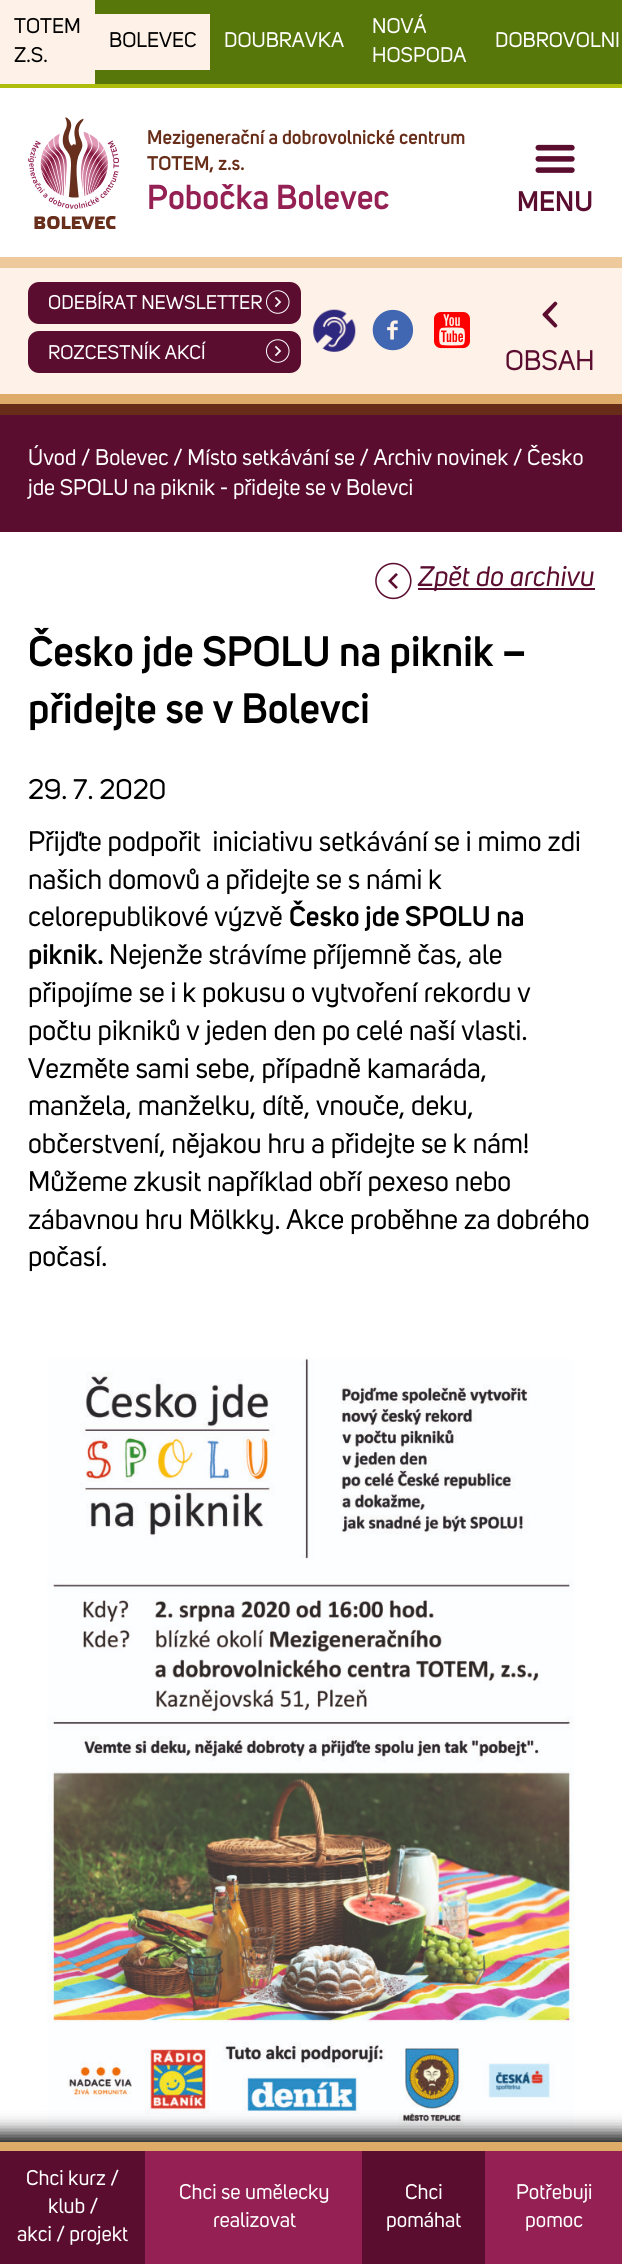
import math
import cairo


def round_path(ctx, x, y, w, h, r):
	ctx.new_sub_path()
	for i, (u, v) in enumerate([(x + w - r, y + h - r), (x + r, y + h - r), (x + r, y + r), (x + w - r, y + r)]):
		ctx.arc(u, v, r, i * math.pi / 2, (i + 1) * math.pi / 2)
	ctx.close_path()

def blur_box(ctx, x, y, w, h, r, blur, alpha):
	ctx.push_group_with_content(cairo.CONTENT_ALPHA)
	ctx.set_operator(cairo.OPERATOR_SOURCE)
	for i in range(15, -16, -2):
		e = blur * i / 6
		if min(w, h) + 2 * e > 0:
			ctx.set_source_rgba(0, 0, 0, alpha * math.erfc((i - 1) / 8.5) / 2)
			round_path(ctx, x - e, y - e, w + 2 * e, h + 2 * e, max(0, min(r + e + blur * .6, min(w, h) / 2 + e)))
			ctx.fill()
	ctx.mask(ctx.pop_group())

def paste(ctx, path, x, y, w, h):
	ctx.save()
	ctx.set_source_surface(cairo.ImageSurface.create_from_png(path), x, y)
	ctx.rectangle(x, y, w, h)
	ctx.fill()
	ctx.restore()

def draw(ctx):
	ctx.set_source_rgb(1, 1, 1)
	ctx.paint()
	ctx.set_source_rgb(0.345, 0.467, 0.043)
	ctx.rectangle(95, 0, 527, 84)
	ctx.fill()
	ctx.set_source_rgb(0.682, 0.737, 0.047)
	ctx.rectangle(0, 84, 622, 4)
	ctx.fill()
	ctx.set_source_rgb(0.996, 0.945, 0.906)
	ctx.rectangle(0, 0, 95, 84)
	ctx.fill()
	ctx.select_font_face('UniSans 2')
	ctx.set_font_size(21)
	ctx.set_source_rgb(0, 0, 0)
	ctx.move_to(14, 33)
	ctx.show_text('TOTEM')
	ctx.move_to(14, 62)
	ctx.show_text('Z.S.')
	ctx.set_source_rgb(0.996, 0.945, 0.906)
	ctx.rectangle(95, 14, 115, 56)
	ctx.fill()
	ctx.set_source_rgb(0, 0, 0)
	ctx.move_to(109, 47)
	ctx.show_text('BOLEVEC')
	ctx.set_source_rgb(1, 1, 1)
	for x, y, s in [
		(224, 47, 'DOUBRAVKA'),
		(372, 33, 'NOVÁ'),
		(372, 62, 'HOSPODA'),
		(495, 47, 'DOBROVOLNI'),
	]:
		ctx.move_to(x, y)
		ctx.show_text(s)
	ctx.set_source_rgb(0.929, 0.788, 0.612)
	ctx.rectangle(0, 257, 622, 11)
	ctx.fill()
	paste(ctx, 'media/1.png', 28, 117, 91, 112)
	ctx.select_font_face('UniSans')
	ctx.set_font_size(19.6)
	ctx.set_source_rgb(0.404, 0.176, 0.094)
	ctx.move_to(147, 144)
	ctx.show_text('Mezigenerační a dobrovolnické centrum')
	ctx.move_to(147, 170)
	ctx.show_text('TOTEM, z.s.')
	ctx.set_font_size(34.25)
	ctx.set_source_rgb(0.58, 0.125, 0.329)
	ctx.move_to(147, 209)
	ctx.show_text('Pobočka Bolevec')
	paste(ctx, 'media/2.png', 535, 144, 40, 29)
	ctx.set_font_size(28)
	ctx.set_source_rgb(0.357, 0.051, 0.188)
	ctx.move_to(517, 211)
	ctx.show_text('MENU')
	ctx.set_source_rgb(0.996, 0.945, 0.906)
	ctx.rectangle(0, 268, 622, 126)
	ctx.fill()
	ctx.set_source_rgb(0.871, 0.671, 0.412)
	ctx.rectangle(0, 394, 622, 10)
	ctx.fill()
	ctx.set_source_rgb(0.357, 0.051, 0.188)
	round_path(ctx, 28, 282, 273, 42, 11)
	ctx.fill()
	ctx.select_font_face('UniSans 2')
	ctx.set_font_size(19.6)
	ctx.set_source_rgb(1, 1, 1)
	ctx.move_to(48, 309)
	ctx.show_text('ODEBÍRAT NEWSLETTER')
	paste(ctx, 'media/3.png', 266, 290, 24, 24)
	ctx.set_source_rgb(0.357, 0.051, 0.188)
	round_path(ctx, 28, 331, 273, 42, 11)
	ctx.fill()
	ctx.set_source_rgb(1, 1, 1)
	ctx.move_to(48, 359)
	ctx.show_text('ROZCESTNÍK AKCÍ')
	paste(ctx, 'media/3.png', 266, 339, 24, 24)
	paste(ctx, 'media/4.png', 313, 309, 43, 43)
	paste(ctx, 'media/5.png', 372, 309, 42, 42)
	paste(ctx, 'media/6.png', 434, 312, 36, 37)
	paste(ctx, 'media/7.png', 542, 301, 16, 27)
	ctx.set_font_size(28)
	ctx.set_source_rgb(0.357, 0.051, 0.188)
	ctx.move_to(505, 370)
	ctx.show_text('OBSAH')
	ctx.rectangle(0, 415, 622, 117)
	ctx.fill()
	ctx.set_source_rgb(0.404, 0.176, 0.094)
	ctx.rectangle(0, 404, 622, 11)
	ctx.fill()
	ctx.set_font_size(22.4)
	ctx.set_source_rgb(1, 1, 1)
	ctx.move_to(28, 465)
	ctx.show_text('Úvod / Bolevec / Místo setkávání se / Archiv novinek / Česko')
	ctx.move_to(28, 495)
	ctx.show_text('jde SPOLU na piknik - přidejte se v Bolevci')
	paste(ctx, 'media/8.png', 375, 562, 37, 38)
	ctx.set_source_rgb(0.357, 0.051, 0.188)
	ctx.rectangle(418, 588, 177, 2)
	ctx.fill()
	ctx.select_font_face('UniSans', cairo.FONT_SLANT_ITALIC)
	ctx.set_font_size(28)
	ctx.move_to(418, 586)
	ctx.show_text('Zpět do archivu')
	ctx.select_font_face('UniSans')
	ctx.set_font_size(42)
	ctx.set_source_rgb(0, 0, 0)
	ctx.move_to(28, 666)
	ctx.show_text('Česko jde SPOLU na piknik –')
	ctx.move_to(28, 723)
	ctx.show_text('přidejte se v Bolevci')
	ctx.select_font_face('UniSans 2')
	ctx.set_font_size(28)
	for x, y, s in [
		(28, 799, '29. 7. 2020'),
		(28, 851, 'Přijďte podpořit  iniciativu setkávání se i mimo zdi'),
		(28, 889, 'našich domovů a přidejte se s námi k'),
		(28, 926, 'celorepublikové výzvě'),
	]:
		ctx.move_to(x, y)
		ctx.show_text(s)
	ctx.select_font_face('UniSans')
	ctx.move_to(289, 926)
	ctx.show_text('Česko jde SPOLU na')
	ctx.move_to(28, 964)
	ctx.show_text('piknik.')
	ctx.select_font_face('UniSans 2')
	for x, y, s in [
		(109, 964, 'Nejenže strávíme příjemně čas, ale'),
		(28, 1002, 'připojíme se i k pokusu o vytvoření rekordu v'),
		(28, 1040, 'počtu pikniků v jeden den po celé naší vlasti.'),
		(28, 1078, 'Vezměte sami sebe, případně kamaráda,'),
		(28, 1115, 'manžela, manželku, dítě, vnouče, deku,'),
		(28, 1153, 'občerstvení, nějakou hru a přidejte se k nám!'),
		(28, 1191, 'Můžeme zkusit například obří pexeso nebo'),
		(28, 1229, 'zábavnou hru Mölkky. Akce proběhne za dobrého'),
		(28, 1266, 'počasí.'),
	]:
		ctx.move_to(x, y)
		ctx.show_text(s)
	paste(ctx, 'media/9.png', 47, 1358, 527, 769)
	ctx.set_source_rgb(0, 0, 0)
	blur_box(ctx, -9, 2133, 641, 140, 0, 9, 0.9)
	ctx.set_source_rgb(0.357, 0.051, 0.188)
	ctx.rectangle(0, 2151, 485, 113)
	ctx.fill()
	ctx.set_source_rgb(0.871, 0.671, 0.412)
	ctx.rectangle(0, 2142, 622, 9)
	ctx.fill()
	ctx.set_font_size(21)
	ctx.set_source_rgb(1, 1, 1)
	for x, y, s in [
		(26, 2185, 'Chci kurz /'),
		(48, 2213, 'klub /'),
		(17, 2241, 'akci / projekt'),
	]:
		ctx.move_to(x, y)
		ctx.show_text(s)
	ctx.set_source_rgb(0.58, 0.125, 0.329)
	ctx.rectangle(145, 2151, 217, 113)
	ctx.fill()
	ctx.set_source_rgb(1, 1, 1)
	for x, y, s in [
		(179, 2199, 'Chci se umělecky'),
		(213, 2227, 'realizovat'),
		(405, 2199, 'Chci'),
		(386, 2227, 'pomáhat'),
	]:
		ctx.move_to(x, y)
		ctx.show_text(s)
	ctx.set_source_rgb(0.58, 0.125, 0.329)
	ctx.rectangle(485, 2151, 137, 113)
	ctx.fill()
	ctx.set_source_rgb(1, 1, 1)
	ctx.move_to(516, 2199)
	ctx.show_text('Potřebuji')
	ctx.move_to(525, 2227)
	ctx.show_text('pomoc')


surface = cairo.ImageSurface(cairo.FORMAT_RGB24, 622, 2264)
ctx = cairo.Context(surface)
options = cairo.FontOptions()
options.set_hint_metrics(cairo.HINT_METRICS_OFF)
options.set_hint_style(cairo.HINT_STYLE_NONE)
ctx.set_font_options(options)
ctx.set_miter_limit(4)
draw(ctx)
surface.write_to_png('image.png')
